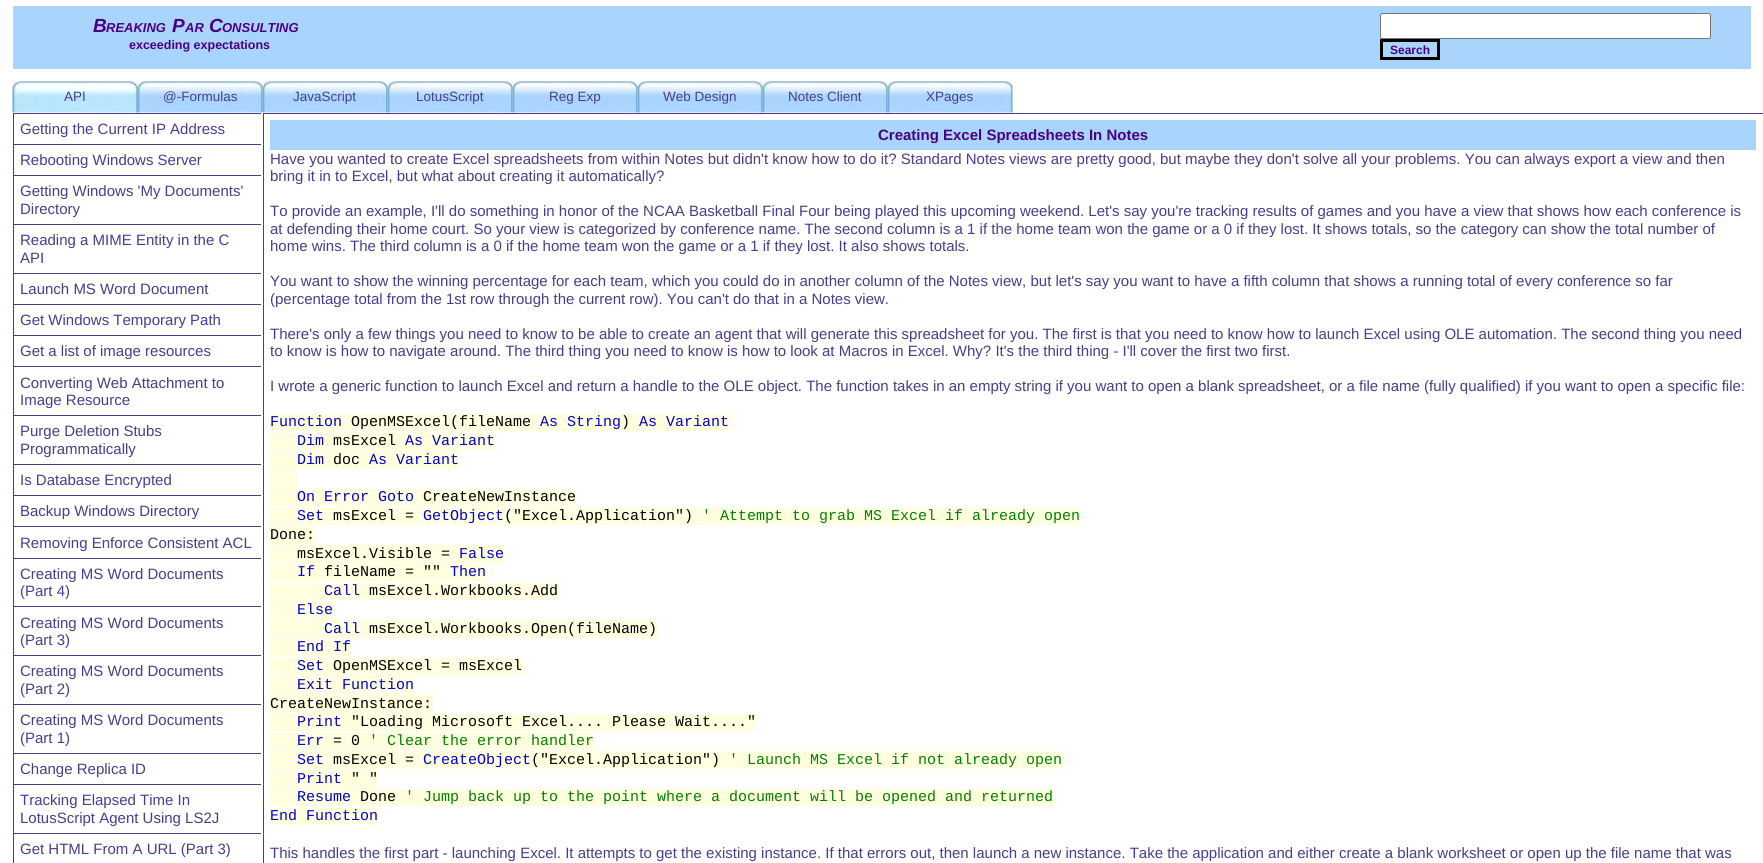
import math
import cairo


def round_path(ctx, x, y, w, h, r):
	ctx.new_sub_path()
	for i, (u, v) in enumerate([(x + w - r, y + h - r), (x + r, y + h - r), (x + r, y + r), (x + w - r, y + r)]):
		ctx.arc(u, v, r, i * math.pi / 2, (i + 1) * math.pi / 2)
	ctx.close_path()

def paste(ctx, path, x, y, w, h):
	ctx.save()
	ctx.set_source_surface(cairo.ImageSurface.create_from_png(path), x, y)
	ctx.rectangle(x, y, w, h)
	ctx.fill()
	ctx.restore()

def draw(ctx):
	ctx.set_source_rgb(1, 1, 1)
	ctx.paint()
	ctx.set_source_rgb(0.663, 0.835, 0.988)
	ctx.rectangle(13, 6, 1738, 63)
	ctx.fill()
	ctx.select_font_face('Liberation Sans', cairo.FONT_SLANT_ITALIC, cairo.FONT_WEIGHT_BOLD)
	ctx.set_font_size(19)
	ctx.set_source_rgb(0.294, 0, 0.51)
	ctx.move_to(93, 32)
	ctx.show_text('B')
	ctx.set_font_size(13)
	ctx.move_to(106, 32)
	ctx.show_text('REAKING')
	ctx.set_font_size(19)
	ctx.move_to(172, 32)
	ctx.show_text('P')
	ctx.set_font_size(13)
	ctx.move_to(185, 32)
	ctx.show_text('AR')
	ctx.set_font_size(19)
	ctx.move_to(209, 32)
	ctx.show_text('C')
	ctx.set_font_size(13)
	ctx.move_to(222, 32)
	ctx.show_text('ONSULTING')
	ctx.select_font_face('Liberation Sans', cairo.FONT_SLANT_NORMAL, cairo.FONT_WEIGHT_BOLD)
	ctx.set_font_size(12.5)
	ctx.move_to(129, 49)
	ctx.show_text('exceeding expectations')
	ctx.set_source_rgb(1, 1, 1)
	round_path(ctx, 1380.5, 13.5, 330, 25, 2)
	ctx.fill_preserve()
	ctx.set_source_rgb(0.463, 0.463, 0.463)
	ctx.set_line_width(1)
	ctx.stroke()
	ctx.rectangle(1381.5, 40.5, 57, 18)
	ctx.set_source_rgb(0, 0, 0)
	ctx.set_line_width(3)
	ctx.stroke()
	ctx.set_font_size(12)
	ctx.set_source_rgb(0.294, 0, 0.51)
	ctx.move_to(1390, 54)
	ctx.show_text('Search')
	paste(ctx, 'media/1.png', 12, 81, 126, 32)
	ctx.select_font_face('Liberation Sans')
	ctx.set_font_size(13.5)
	ctx.set_source_rgb(0.282, 0.239, 0.545)
	ctx.move_to(64, 101)
	ctx.show_text('API')
	paste(ctx, 'media/2.png', 137, 81, 126, 32)
	ctx.move_to(163, 101)
	ctx.show_text('@-Formulas')
	paste(ctx, 'media/3.png', 262, 81, 126, 32)
	ctx.move_to(293, 101)
	ctx.show_text('JavaScript')
	paste(ctx, 'media/4.png', 387, 81, 126, 32)
	ctx.move_to(416, 101)
	ctx.show_text('LotusScript')
	paste(ctx, 'media/5.png', 512, 81, 126, 32)
	ctx.move_to(549, 101)
	ctx.show_text('Reg Exp')
	paste(ctx, 'media/5.png', 637, 81, 126, 32)
	ctx.move_to(663, 101)
	ctx.show_text('Web Design')
	paste(ctx, 'media/5.png', 762, 81, 126, 32)
	ctx.move_to(788, 101)
	ctx.show_text('Notes Client')
	paste(ctx, 'media/6.png', 887, 81, 126, 32)
	ctx.move_to(926, 101)
	ctx.show_text('XPages')
	ctx.rectangle(13, 113, 248, 1)
	ctx.rectangle(13, 114, 1, 749)
	ctx.rectangle(14, 144, 247, 1)
	ctx.fill()
	ctx.set_font_size(15)
	ctx.move_to(20, 134)
	ctx.show_text('Getting the Current IP Address')
	ctx.rectangle(14, 175, 247, 1)
	ctx.fill()
	ctx.move_to(20, 165)
	ctx.show_text('Rebooting Windows Server')
	ctx.rectangle(14, 224, 247, 1)
	ctx.fill()
	ctx.move_to(20, 196)
	ctx.show_text('Getting Windows \'My Documents\'')
	ctx.move_to(20, 214)
	ctx.show_text('Directory')
	ctx.rectangle(14, 273, 247, 1)
	ctx.fill()
	ctx.move_to(20, 245)
	ctx.show_text('Reading a MIME Entity in the C')
	ctx.move_to(20, 263)
	ctx.show_text('API')
	ctx.rectangle(14, 304, 247, 1)
	ctx.fill()
	ctx.move_to(20, 294)
	ctx.show_text('Launch MS Word Document')
	ctx.rectangle(14, 335, 247, 1)
	ctx.fill()
	ctx.move_to(20, 325)
	ctx.show_text('Get Windows Temporary Path')
	ctx.rectangle(14, 366, 247, 1)
	ctx.fill()
	ctx.move_to(20, 356)
	ctx.show_text('Get a list of image resources')
	ctx.rectangle(14, 415, 247, 1)
	ctx.fill()
	ctx.move_to(20, 388)
	ctx.show_text('Converting Web Attachment to')
	ctx.move_to(20, 405)
	ctx.show_text('Image Resource')
	ctx.rectangle(14, 464, 247, 1)
	ctx.fill()
	ctx.move_to(20, 436)
	ctx.show_text('Purge Deletion Stubs')
	ctx.move_to(20, 454)
	ctx.show_text('Programmatically')
	ctx.rectangle(14, 495, 247, 1)
	ctx.fill()
	ctx.move_to(20, 485)
	ctx.show_text('Is Database Encrypted')
	ctx.rectangle(14, 526, 247, 1)
	ctx.fill()
	ctx.move_to(20, 516)
	ctx.show_text('Backup Windows Directory')
	ctx.rectangle(14, 558, 247, 1)
	ctx.fill()
	ctx.move_to(20, 548)
	ctx.show_text('Removing Enforce Consistent ACL')
	ctx.rectangle(14, 606, 247, 1)
	ctx.fill()
	ctx.move_to(20, 579)
	ctx.show_text('Creating MS Word Documents')
	ctx.move_to(20, 596)
	ctx.show_text('(Part 4)')
	ctx.rectangle(14, 655, 247, 1)
	ctx.fill()
	ctx.move_to(20, 628)
	ctx.show_text('Creating MS Word Documents')
	ctx.move_to(20, 645)
	ctx.show_text('(Part 3)')
	ctx.rectangle(14, 704, 247, 1)
	ctx.fill()
	ctx.move_to(20, 676)
	ctx.show_text('Creating MS Word Documents')
	ctx.move_to(20, 694)
	ctx.show_text('(Part 2)')
	ctx.rectangle(14, 753, 247, 1)
	ctx.fill()
	ctx.move_to(20, 725)
	ctx.show_text('Creating MS Word Documents')
	ctx.move_to(20, 743)
	ctx.show_text('(Part 1)')
	ctx.rectangle(14, 784, 247, 1)
	ctx.fill()
	ctx.move_to(20, 774)
	ctx.show_text('Change Replica ID')
	ctx.rectangle(14, 833, 247, 1)
	ctx.fill()
	for x, y, s in [
		(20, 805, 'Tracking Elapsed Time In'),
		(20, 823, 'LotusScript Agent Using LS2J'),
		(20, 854, 'Get HTML From A URL (Part 3)'),
	]:
		ctx.move_to(x, y)
		ctx.show_text(s)
	ctx.rectangle(263.5, 113.5, 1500, 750)
	ctx.set_line_width(1)
	ctx.stroke()
	ctx.set_source_rgb(0.663, 0.835, 0.988)
	ctx.rectangle(270, 120, 1486, 30)
	ctx.fill()
	ctx.select_font_face('Liberation Sans', cairo.FONT_SLANT_NORMAL, cairo.FONT_WEIGHT_BOLD)
	ctx.set_source_rgb(0.294, 0, 0.51)
	ctx.move_to(878, 140)
	ctx.show_text('Creating Excel Spreadsheets In Notes')
	ctx.select_font_face('Liberation Sans')
	ctx.set_source_rgb(0.282, 0.239, 0.545)
	for x, y, s in [
		(270, 164, 'Have you wanted to create Excel spreadsheets from within Notes but didn\'t know how to do it? Standard Notes views are pretty good, but maybe they don\'t solve all your problems. You can always export a view and then'),
		(270, 181, 'bring it in to Excel, but what about creating it automatically?'),
		(270, 216, 'To provide an example, I\'ll do something in honor of the NCAA Basketball Final Four being played this upcoming weekend. Let\'s say you\'re tracking results of games and you have a view that shows how each conference is'),
		(270, 234, 'at defending their home court. So your view is categorized by conference name. The second column is a 1 if the home team won the game or a 0 if they lost. It shows totals, so the category can show the total number of'),
		(270, 251, 'home wins. The third column is a 0 if the home team won the game or a 1 if they lost. It also shows totals.'),
		(270, 286, 'You want to show the winning percentage for each team, which you could do in another column of the Notes view, but let\'s say you want to have a fifth column that shows a running total of every conference so far'),
		(270, 304, '(percentage total from the 1st row through the current row). You can\'t do that in a Notes view.'),
		(270, 339, 'There\'s only a few things you need to know to be able to create an agent that will generate this spreadsheet for you. The first is that you need to know how to launch Excel using OLE automation. The second thing you need'),
		(270, 356, 'to know is how to navigate around. The third thing you need to know is how to look at Macros in Excel. Why? It\'s the third thing - I\'ll cover the first two first.'),
		(270, 391, 'I wrote a generic function to launch Excel and return a handle to the OLE object. The function takes in an empty string if you want to open a blank spreadsheet, or a file name (fully qualified) if you want to open a specific file:'),
	]:
		ctx.move_to(x, y)
		ctx.show_text(s)
	ctx.set_source_rgb(1, 1, 0.878)
	ctx.rectangle(270, 414, 459, 17)
	ctx.fill()
	ctx.select_font_face('Liberation Mono')
	ctx.set_source_rgb(0, 0, 0.804)
	ctx.move_to(270, 426)
	ctx.show_text('Function')
	ctx.set_source_rgb(0, 0, 0)
	ctx.move_to(351, 426)
	ctx.show_text('OpenMSExcel(fileName')
	ctx.set_source_rgb(0, 0, 0.804)
	ctx.move_to(540, 426)
	ctx.show_text('As String')
	ctx.set_source_rgb(0, 0, 0)
	ctx.move_to(621, 426)
	ctx.show_text(')')
	ctx.set_source_rgb(0, 0, 0.804)
	ctx.move_to(639, 426)
	ctx.show_text('As Variant')
	ctx.set_source_rgb(1, 1, 0.878)
	ctx.rectangle(270, 433, 225, 17)
	ctx.fill()
	ctx.set_source_rgb(0, 0, 0.804)
	ctx.move_to(297, 445)
	ctx.show_text('Dim')
	ctx.set_source_rgb(0, 0, 0)
	ctx.move_to(333, 445)
	ctx.show_text('msExcel')
	ctx.set_source_rgb(0, 0, 0.804)
	ctx.move_to(405, 445)
	ctx.show_text('As Variant')
	ctx.set_source_rgb(1, 1, 0.878)
	ctx.rectangle(270, 451, 189, 18)
	ctx.fill()
	ctx.set_source_rgb(0, 0, 0.804)
	ctx.move_to(297, 464)
	ctx.show_text('Dim')
	ctx.set_source_rgb(0, 0, 0)
	ctx.move_to(333, 464)
	ctx.show_text('doc')
	ctx.set_source_rgb(0, 0, 0.804)
	ctx.move_to(369, 464)
	ctx.show_text('As Variant')
	ctx.set_source_rgb(1, 1, 0.878)
	ctx.rectangle(270, 489, 306, 17)
	ctx.fill()
	ctx.set_source_rgb(0, 0, 0.804)
	ctx.move_to(297, 501)
	ctx.show_text('On Error Goto')
	ctx.set_source_rgb(1, 1, 0.878)
	ctx.rectangle(270, 470, 28, 18)
	ctx.fill()
	ctx.set_source_rgb(0, 0, 0)
	ctx.move_to(423, 501)
	ctx.show_text('CreateNewInstance')
	ctx.set_source_rgb(1, 1, 0.878)
	ctx.rectangle(270, 508, 810, 17)
	ctx.fill()
	ctx.set_source_rgb(0, 0, 0.804)
	ctx.move_to(297, 520)
	ctx.show_text('Set')
	ctx.set_source_rgb(0, 0, 0)
	ctx.move_to(333, 520)
	ctx.show_text('msExcel =')
	ctx.set_source_rgb(0, 0, 0.804)
	ctx.move_to(423, 520)
	ctx.show_text('GetObject')
	ctx.set_source_rgb(0, 0, 0)
	ctx.move_to(504, 520)
	ctx.show_text('("Excel.Application")')
	ctx.set_source_rgb(0, 0.502, 0)
	ctx.move_to(702, 520)
	ctx.show_text('\' Attempt to grab MS Excel if already open')
	ctx.set_source_rgb(1, 1, 0.878)
	ctx.rectangle(270, 526, 45, 18)
	ctx.fill()
	ctx.set_source_rgb(0, 0, 0)
	ctx.move_to(270, 539)
	ctx.show_text('Done:')
	ctx.set_source_rgb(1, 1, 0.878)
	ctx.rectangle(270, 545, 234, 18)
	ctx.fill()
	ctx.set_source_rgb(0, 0, 0)
	ctx.move_to(297, 558)
	ctx.show_text('msExcel.Visible =')
	ctx.set_source_rgb(0, 0, 0.804)
	ctx.move_to(459, 558)
	ctx.show_text('False')
	ctx.set_source_rgb(1, 1, 0.878)
	ctx.rectangle(270, 564, 216, 17)
	ctx.fill()
	ctx.set_source_rgb(0, 0, 0.804)
	ctx.move_to(297, 576)
	ctx.show_text('If')
	ctx.set_source_rgb(0, 0, 0)
	ctx.move_to(324, 576)
	ctx.show_text('fileName = ""')
	ctx.set_source_rgb(0, 0, 0.804)
	ctx.move_to(450, 576)
	ctx.show_text('Then')
	ctx.set_source_rgb(1, 1, 0.878)
	ctx.rectangle(270, 583, 288, 17)
	ctx.fill()
	ctx.set_source_rgb(0, 0, 0.804)
	ctx.move_to(324, 595)
	ctx.show_text('Call')
	ctx.set_source_rgb(0, 0, 0)
	ctx.move_to(369, 595)
	ctx.show_text('msExcel.Workbooks.Add')
	ctx.set_source_rgb(1, 1, 0.878)
	ctx.rectangle(270, 601, 63, 18)
	ctx.fill()
	ctx.set_source_rgb(0, 0, 0.804)
	ctx.move_to(297, 614)
	ctx.show_text('Else')
	ctx.set_source_rgb(1, 1, 0.878)
	ctx.rectangle(270, 620, 388, 18)
	ctx.fill()
	ctx.set_source_rgb(0, 0, 0.804)
	ctx.move_to(324, 633)
	ctx.show_text('Call')
	ctx.set_source_rgb(0, 0, 0)
	ctx.move_to(369, 633)
	ctx.show_text('msExcel.Workbooks.Open(fileName)')
	ctx.set_source_rgb(1, 1, 0.878)
	ctx.rectangle(270, 639, 81, 17)
	ctx.fill()
	ctx.set_source_rgb(0, 0, 0.804)
	ctx.move_to(297, 651)
	ctx.show_text('End If')
	ctx.set_source_rgb(1, 1, 0.878)
	ctx.rectangle(270, 658, 253, 17)
	ctx.fill()
	ctx.set_source_rgb(0, 0, 0.804)
	ctx.move_to(297, 670)
	ctx.show_text('Set')
	ctx.set_source_rgb(0, 0, 0)
	ctx.move_to(333, 670)
	ctx.show_text('OpenMSExcel = msExcel')
	ctx.set_source_rgb(1, 1, 0.878)
	ctx.rectangle(270, 676, 144, 18)
	ctx.fill()
	ctx.set_source_rgb(0, 0, 0.804)
	ctx.move_to(297, 689)
	ctx.show_text('Exit Function')
	ctx.set_source_rgb(1, 1, 0.878)
	ctx.rectangle(270, 695, 163, 18)
	ctx.fill()
	ctx.set_source_rgb(0, 0, 0)
	ctx.move_to(270, 708)
	ctx.show_text('CreateNewInstance:')
	ctx.set_source_rgb(1, 1, 0.878)
	ctx.rectangle(270, 714, 486, 17)
	ctx.fill()
	ctx.set_source_rgb(0, 0, 0.804)
	ctx.move_to(297, 726)
	ctx.show_text('Print')
	ctx.set_source_rgb(0, 0, 0)
	ctx.move_to(351, 726)
	ctx.show_text('"Loading Microsoft Excel.... Please Wait...."')
	ctx.set_source_rgb(1, 1, 0.878)
	ctx.rectangle(270, 733, 324, 17)
	ctx.fill()
	ctx.set_source_rgb(0, 0, 0.804)
	ctx.move_to(297, 745)
	ctx.show_text('Err')
	ctx.set_source_rgb(0, 0, 0)
	ctx.move_to(333, 745)
	ctx.show_text('= 0')
	ctx.set_source_rgb(0, 0.502, 0)
	ctx.move_to(369, 745)
	ctx.show_text('\' Clear the error handler')
	ctx.set_source_rgb(1, 1, 0.878)
	ctx.rectangle(270, 751, 793, 18)
	ctx.fill()
	ctx.set_source_rgb(0, 0, 0.804)
	ctx.move_to(297, 764)
	ctx.show_text('Set')
	ctx.set_source_rgb(0, 0, 0)
	ctx.move_to(333, 764)
	ctx.show_text('msExcel =')
	ctx.set_source_rgb(0, 0, 0.804)
	ctx.move_to(423, 764)
	ctx.show_text('CreateObject')
	ctx.set_source_rgb(0, 0, 0)
	ctx.move_to(531, 764)
	ctx.show_text('("Excel.Application")')
	ctx.set_source_rgb(0, 0.502, 0)
	ctx.move_to(729, 764)
	ctx.show_text('\' Launch MS Excel if not already open')
	ctx.set_source_rgb(1, 1, 0.878)
	ctx.rectangle(270, 770, 108, 18)
	ctx.fill()
	ctx.set_source_rgb(0, 0, 0.804)
	ctx.move_to(297, 783)
	ctx.show_text('Print')
	ctx.set_source_rgb(0, 0, 0)
	ctx.move_to(351, 783)
	ctx.show_text('" "')
	ctx.set_source_rgb(1, 1, 0.878)
	ctx.rectangle(270, 789, 784, 17)
	ctx.fill()
	ctx.set_source_rgb(0, 0, 0.804)
	ctx.move_to(297, 801)
	ctx.show_text('Resume')
	ctx.set_source_rgb(0, 0, 0)
	ctx.move_to(360, 801)
	ctx.show_text('Done')
	ctx.set_source_rgb(0, 0.502, 0)
	ctx.move_to(405, 801)
	ctx.show_text('\' Jump back up to the point where a document will be opened and returned')
	ctx.set_source_rgb(1, 1, 0.878)
	ctx.rectangle(270, 808, 108, 17)
	ctx.fill()
	ctx.set_source_rgb(0, 0, 0.804)
	ctx.move_to(270, 820)
	ctx.show_text('End Function')
	ctx.select_font_face('Liberation Sans')
	ctx.set_source_rgb(0.282, 0.239, 0.545)
	ctx.move_to(270, 858)
	ctx.show_text('This handles the first part - launching Excel. It attempts to get the existing instance. If that errors out, then launch a new instance. Take the application and either create a blank worksheet or open up the file name that was')


surface = cairo.ImageSurface(cairo.FORMAT_RGB24, 1763, 863)
ctx = cairo.Context(surface)
options = cairo.FontOptions()
options.set_hint_metrics(cairo.HINT_METRICS_OFF)
options.set_hint_style(cairo.HINT_STYLE_NONE)
ctx.set_font_options(options)
ctx.set_miter_limit(4)
draw(ctx)
surface.write_to_png('image.png')
